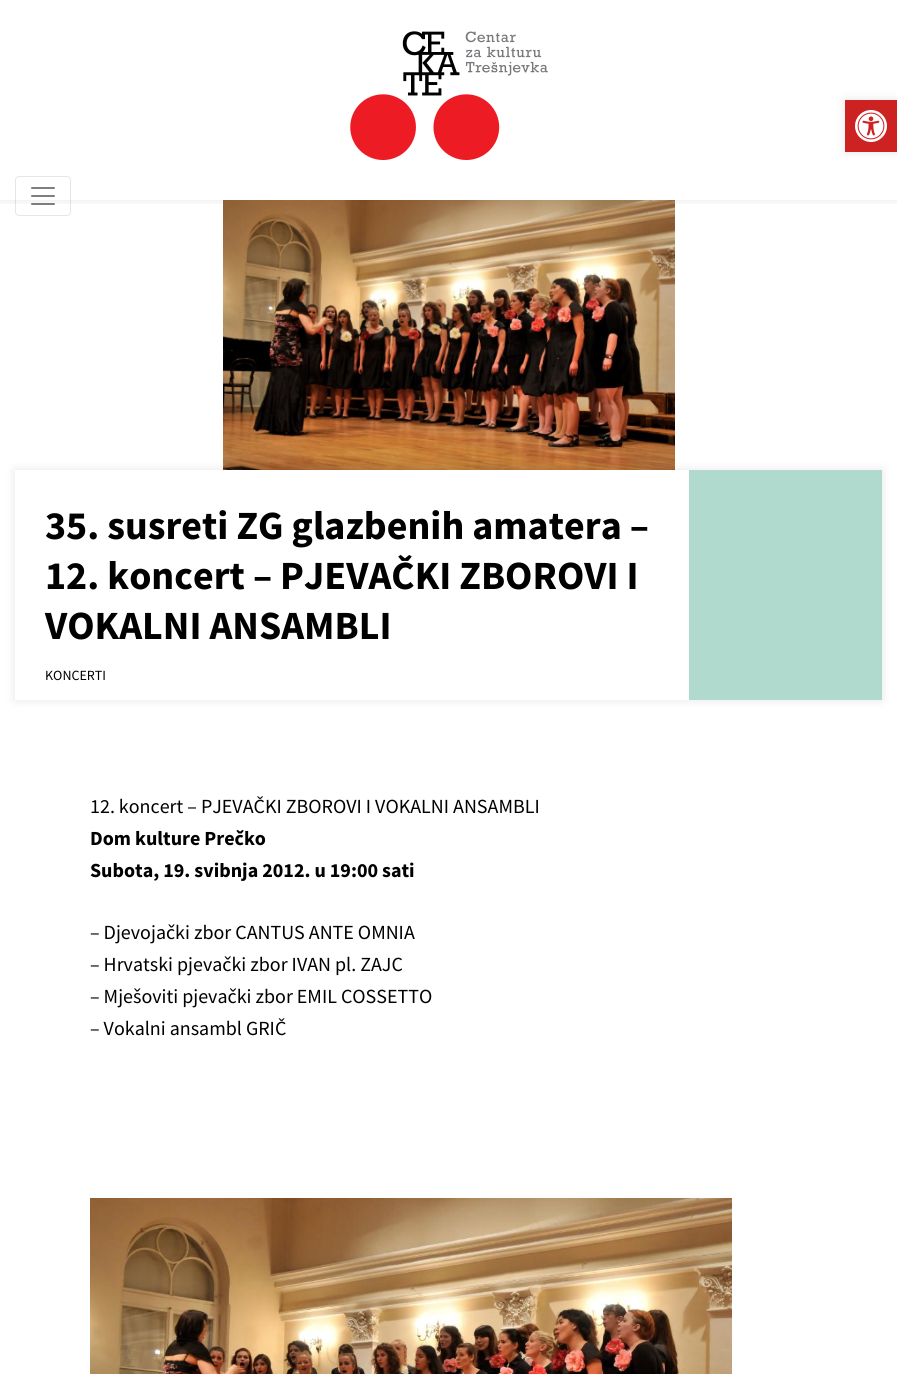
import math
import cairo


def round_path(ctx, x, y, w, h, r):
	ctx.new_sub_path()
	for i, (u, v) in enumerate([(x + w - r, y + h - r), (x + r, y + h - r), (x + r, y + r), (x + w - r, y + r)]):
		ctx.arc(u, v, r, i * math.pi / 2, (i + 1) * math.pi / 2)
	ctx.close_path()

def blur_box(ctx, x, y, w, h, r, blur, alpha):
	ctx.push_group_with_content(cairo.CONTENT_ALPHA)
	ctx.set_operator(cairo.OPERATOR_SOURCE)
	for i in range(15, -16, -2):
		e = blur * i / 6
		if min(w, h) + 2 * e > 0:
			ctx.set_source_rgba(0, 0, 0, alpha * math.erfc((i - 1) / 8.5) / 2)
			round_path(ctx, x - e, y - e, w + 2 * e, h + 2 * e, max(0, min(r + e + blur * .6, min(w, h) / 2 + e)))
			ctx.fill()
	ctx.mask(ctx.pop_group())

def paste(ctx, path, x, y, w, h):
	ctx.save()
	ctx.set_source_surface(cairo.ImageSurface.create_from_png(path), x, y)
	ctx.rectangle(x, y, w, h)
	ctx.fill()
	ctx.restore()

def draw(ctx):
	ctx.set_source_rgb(1, 1, 1)
	ctx.paint()
	ctx.save()
	ctx.rectangle(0, 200, 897, 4)
	ctx.clip()
	ctx.set_source_rgb(0, 0, 0)
	blur_box(ctx, 0, 0, 897, 200, 0, 5, 0.1)
	ctx.restore()
	paste(ctx, 'media/1.png', 350, 31, 198, 129)
	round_path(ctx, 15.5, 176.5, 55, 39, 3.5)
	ctx.set_source_rgba(0, 0, 0, 0.1)
	ctx.set_line_width(1)
	ctx.stroke()
	paste(ctx, 'media/2.png', 31, 187, 24, 18)
	ctx.set_source_rgb(0, 0, 0)
	blur_box(ctx, 845, 100, 52, 52, 0, 5, 0.1)
	ctx.set_source_rgb(0.8, 0.133, 0.133)
	ctx.rectangle(845, 100, 52, 52)
	ctx.fill()
	paste(ctx, 'media/3.png', 855, 110, 32, 32)
	paste(ctx, 'media/4.png', 223, 200, 452, 270)
	ctx.set_source_rgb(0, 0, 0)
	blur_box(ctx, 15, 470, 867, 230, 0, 5, 0.1)
	ctx.set_source_rgb(1, 1, 1)
	ctx.rectangle(15, 470, 674, 230)
	ctx.fill()
	ctx.select_font_face('Source Sans Pro', cairo.FONT_SLANT_NORMAL, cairo.FONT_WEIGHT_BOLD)
	ctx.set_font_size(40)
	ctx.set_source_rgb(0, 0, 0)
	for x, y, s in [
		(45, 539, '35. susreti ZG glazbenih amatera –'),
		(45, 589, '12. koncert – PJEVAČKI ZBOROVI I'),
		(45, 639, 'VOKALNI ANSAMBLI'),
	]:
		ctx.move_to(x, y)
		ctx.show_text(s)
	ctx.select_font_face('Source Sans Pro')
	ctx.set_font_size(14)
	ctx.move_to(45, 680)
	ctx.show_text('KONCERTI')
	ctx.set_source_rgb(0.694, 0.855, 0.808)
	ctx.rectangle(689, 470, 193, 230)
	ctx.fill()
	ctx.set_font_size(20)
	ctx.set_source_rgb(0, 0, 0)
	ctx.move_to(90, 813)
	ctx.show_text('12. koncert – PJEVAČKI ZBOROVI I VOKALNI ANSAMBLI')
	ctx.select_font_face('Source Sans Pro', cairo.FONT_SLANT_NORMAL, cairo.FONT_WEIGHT_BOLD)
	ctx.move_to(90, 845)
	ctx.show_text('Dom kulture Prečko')
	ctx.move_to(90, 877)
	ctx.show_text('Subota, 19. svibnja 2012. u 19:00 sati')
	ctx.select_font_face('Source Sans Pro')
	for x, y, s in [
		(90, 939, '– Djevojački zbor CANTUS ANTE OMNIA'),
		(90, 971, '– Hrvatski pjevački zbor IVAN pl. ZAJC'),
		(90, 1003, '– Mješoviti pjevački zbor EMIL COSSETTO'),
		(90, 1035, '– Vokalni ansambl GRIČ'),
	]:
		ctx.move_to(x, y)
		ctx.show_text(s)
	paste(ctx, 'media/5.png', 90, 1198, 642, 176)


surface = cairo.ImageSurface(cairo.FORMAT_RGB24, 897, 1374)
ctx = cairo.Context(surface)
options = cairo.FontOptions()
options.set_hint_metrics(cairo.HINT_METRICS_OFF)
options.set_hint_style(cairo.HINT_STYLE_NONE)
ctx.set_font_options(options)
ctx.set_miter_limit(4)
draw(ctx)
surface.write_to_png('image.png')
